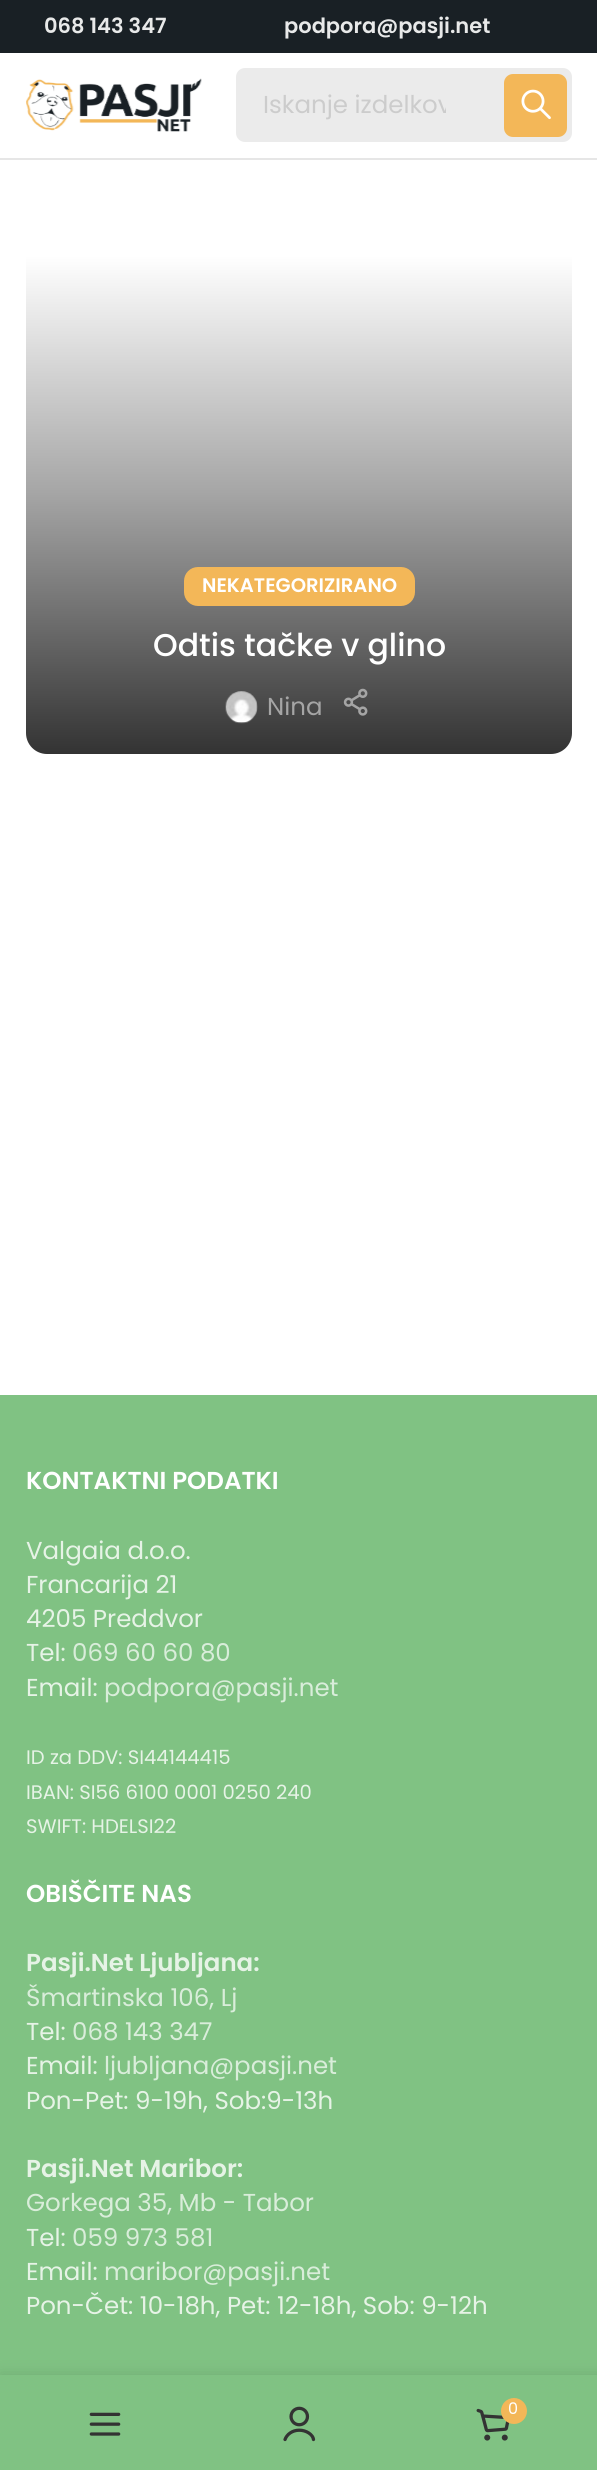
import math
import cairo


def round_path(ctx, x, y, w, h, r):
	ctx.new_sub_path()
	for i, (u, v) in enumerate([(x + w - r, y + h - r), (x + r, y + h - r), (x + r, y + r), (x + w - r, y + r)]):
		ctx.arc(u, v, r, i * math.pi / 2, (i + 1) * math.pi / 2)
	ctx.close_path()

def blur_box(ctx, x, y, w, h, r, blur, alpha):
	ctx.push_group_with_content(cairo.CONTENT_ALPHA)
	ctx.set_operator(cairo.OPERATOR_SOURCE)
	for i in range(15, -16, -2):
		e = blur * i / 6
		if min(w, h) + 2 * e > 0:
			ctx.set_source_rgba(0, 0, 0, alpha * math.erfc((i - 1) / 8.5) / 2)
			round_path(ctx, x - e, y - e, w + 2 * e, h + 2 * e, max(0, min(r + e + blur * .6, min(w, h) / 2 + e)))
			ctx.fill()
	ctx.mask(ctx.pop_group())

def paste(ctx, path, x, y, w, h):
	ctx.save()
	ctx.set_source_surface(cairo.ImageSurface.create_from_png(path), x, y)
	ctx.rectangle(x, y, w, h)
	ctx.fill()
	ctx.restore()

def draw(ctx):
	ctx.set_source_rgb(1, 1, 1)
	ctx.paint()
	ctx.set_source_rgb(0.098, 0.125, 0.145)
	ctx.rectangle(0, 0, 597, 53)
	ctx.fill()
	ctx.select_font_face('Poppins SemiBold')
	ctx.set_font_size(21)
	ctx.set_source_rgb(0.91, 0.914, 0.914)
	ctx.move_to(44, 33)
	ctx.show_text('068 143 347')
	ctx.move_to(284, 33)
	ctx.show_text('podpora@pasji.net')
	ctx.set_source_rgb(0.902, 0.902, 0.902)
	ctx.rectangle(0, 158, 597, 2)
	ctx.fill()
	paste(ctx, 'media/1.png', 26, 78, 176, 54)
	ctx.set_source_rgb(0.918, 0.918, 0.918)
	round_path(ctx, 236, 68, 336, 74, 9)
	ctx.fill()
	ctx.save()
	ctx.rectangle(263, 88, 183, 36)
	ctx.clip()
	ctx.select_font_face('Poppins')
	ctx.set_font_size(24.5)
	ctx.set_source_rgb(0.8, 0.8, 0.8)
	ctx.move_to(263, 113)
	ctx.show_text('Iskanje izdelkov')
	ctx.restore()
	ctx.set_source_rgb(0.953, 0.718, 0.345)
	round_path(ctx, 504, 74, 63, 63, 9)
	ctx.fill()
	paste(ctx, 'media/2.png', 521, 89, 30, 31)
	gradient = cairo.LinearGradient(299, 229, 299, 754)
	gradient.add_color_stop_rgba(0.05, 1, 1, 1, 1)
	gradient.add_color_stop_rgba(0.5, 0.651, 0.651, 0.651, 1)
	gradient.add_color_stop_rgba(1, 0.2, 0.2, 0.2, 1)
	ctx.set_source(gradient)
	round_path(ctx, 26, 229, 546, 525, 21)
	ctx.fill()
	ctx.set_source_rgb(0.953, 0.718, 0.345)
	round_path(ctx, 184, 567, 231, 39, 14)
	ctx.fill()
	ctx.set_font_size(19.6)
	ctx.set_source_rgb(1, 1, 1)
	ctx.move_to(202, 592)
	ctx.show_text('NEKATEGORIZIRANO')
	ctx.select_font_face('Poppins Medium')
	ctx.set_font_size(31.5)
	ctx.move_to(153, 656)
	ctx.show_text('Odtis tačke v glino')
	paste(ctx, 'media/3.png', 225, 691, 33, 33)
	ctx.select_font_face('Poppins')
	ctx.set_font_size(24.5)
	ctx.set_source_rgb(0.647, 0.647, 0.647)
	ctx.move_to(267, 715)
	ctx.show_text('Nina')
	paste(ctx, 'media/4.png', 343, 688, 25, 28)
	ctx.set_source_rgb(0.502, 0.761, 0.514)
	ctx.rectangle(0, 1395, 597, 980)
	ctx.fill()
	ctx.select_font_face('Poppins SemiBold')
	ctx.set_source_rgb(1, 1, 1)
	ctx.move_to(26, 1489)
	ctx.show_text('KONTAKTNI PODATKI')
	ctx.select_font_face('Poppins')
	ctx.set_source_rgb(0.902, 0.953, 0.902)
	for x, y, s in [
		(26, 1559, 'Valgaia d.o.o.'),
		(26, 1593, 'Francarija 21'),
		(26, 1627, '4205 Preddvor'),
		(26, 1661, 'Tel:'),
	]:
		ctx.move_to(x, y)
		ctx.show_text(s)
	ctx.set_source_rgb(0.851, 0.929, 0.855)
	ctx.move_to(72, 1661)
	ctx.show_text('069 60 60 80')
	ctx.set_source_rgb(0.902, 0.953, 0.902)
	ctx.move_to(26, 1696)
	ctx.show_text('Email:')
	ctx.set_source_rgb(0.851, 0.929, 0.855)
	ctx.move_to(104, 1696)
	ctx.show_text('podpora@pasji.net')
	ctx.set_font_size(19.6)
	ctx.set_source_rgb(0.902, 0.953, 0.902)
	for x, y, s in [
		(26, 1764, 'ID za DDV: SI44144415'),
		(26, 1799, 'IBAN: SI56 6100 0001 0250 240'),
		(26, 1833, 'SWIFT: HDELSI22'),
	]:
		ctx.move_to(x, y)
		ctx.show_text(s)
	ctx.select_font_face('Poppins SemiBold')
	ctx.set_font_size(24.5)
	ctx.set_source_rgb(1, 1, 1)
	ctx.move_to(26, 1902)
	ctx.show_text('OBIŠČITE NAS')
	ctx.set_source_rgb(0.902, 0.953, 0.902)
	ctx.move_to(26, 1971)
	ctx.show_text('Pasji.Net Ljubljana:')
	ctx.select_font_face('Poppins')
	ctx.set_source_rgb(0.851, 0.929, 0.855)
	ctx.move_to(26, 2006)
	ctx.show_text('Šmartinska 106, Lj')
	ctx.set_source_rgb(0.902, 0.953, 0.902)
	ctx.move_to(26, 2040)
	ctx.show_text('Tel:')
	ctx.set_source_rgb(0.851, 0.929, 0.855)
	ctx.move_to(72, 2040)
	ctx.show_text('068 143 347')
	ctx.set_source_rgb(0.902, 0.953, 0.902)
	ctx.move_to(26, 2074)
	ctx.show_text('Email:')
	ctx.set_source_rgb(0.851, 0.929, 0.855)
	ctx.move_to(104, 2074)
	ctx.show_text('ljubljana@pasji.net')
	ctx.set_source_rgb(0.902, 0.953, 0.902)
	ctx.move_to(26, 2109)
	ctx.show_text('Pon-Pet: 9-19h, Sob:9-13h')
	ctx.select_font_face('Poppins SemiBold')
	ctx.move_to(26, 2177)
	ctx.show_text('Pasji.Net Maribor:')
	ctx.select_font_face('Poppins')
	ctx.set_source_rgb(0.851, 0.929, 0.855)
	ctx.move_to(26, 2211)
	ctx.show_text('Gorkega 35, Mb - Tabor')
	ctx.set_source_rgb(0.902, 0.953, 0.902)
	ctx.move_to(26, 2246)
	ctx.show_text('Tel:')
	ctx.set_source_rgb(0.851, 0.929, 0.855)
	ctx.move_to(72, 2246)
	ctx.show_text('059 973 581')
	ctx.set_source_rgb(0.902, 0.953, 0.902)
	ctx.move_to(26, 2280)
	ctx.show_text('Email:')
	ctx.set_source_rgb(0.851, 0.929, 0.855)
	ctx.move_to(104, 2280)
	ctx.show_text('maribor@pasji.net')
	ctx.set_source_rgb(0.902, 0.953, 0.902)
	ctx.move_to(26, 2314)
	ctx.show_text('Pon-Čet: 10-18h, Pet: 12-18h, Sob: 9-12h')
	ctx.set_source_rgb(0, 0, 0)
	blur_box(ctx, 0, 2375, 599, 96, 0, 8, 0.12)
	ctx.set_source_rgb(0.502, 0.761, 0.514)
	ctx.rectangle(0, 2375, 597, 95)
	ctx.fill()
	paste(ctx, 'media/5.png', 89, 2412, 32, 24)
	paste(ctx, 'media/6.png', 283, 2406, 33, 36)
	paste(ctx, 'media/7.png', 476, 2408, 34, 33)
	ctx.set_source_rgb(0.953, 0.718, 0.345)
	ctx.arc(514, 2411, 13, 0, 2 * math.pi)
	ctx.fill()
	ctx.set_font_size(16)
	ctx.set_source_rgb(1, 1, 1)
	ctx.move_to(508, 2414)
	ctx.show_text('0')


surface = cairo.ImageSurface(cairo.FORMAT_RGB24, 597, 2470)
ctx = cairo.Context(surface)
options = cairo.FontOptions()
options.set_hint_metrics(cairo.HINT_METRICS_OFF)
options.set_hint_style(cairo.HINT_STYLE_NONE)
ctx.set_font_options(options)
ctx.set_miter_limit(4)
draw(ctx)
surface.write_to_png('image.png')
